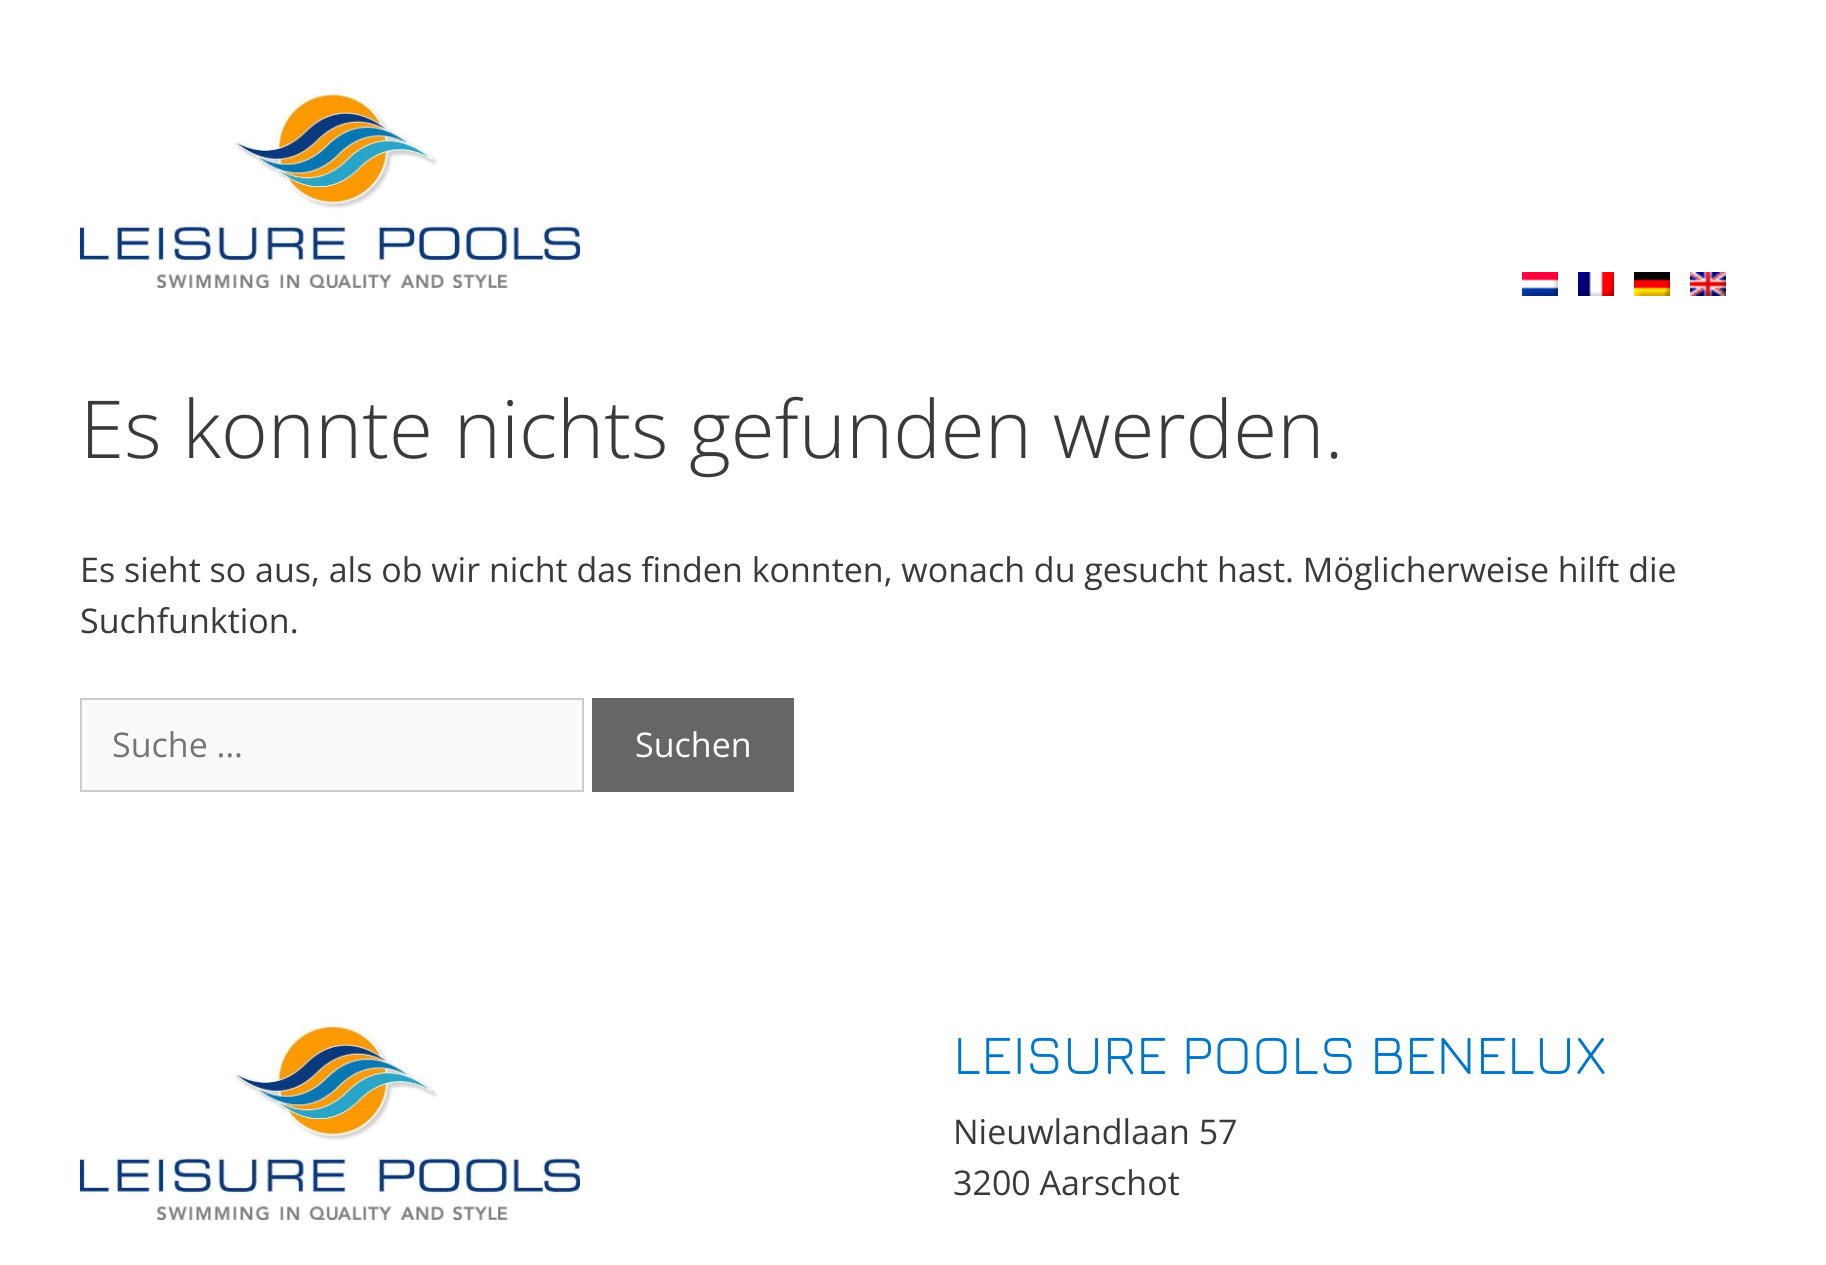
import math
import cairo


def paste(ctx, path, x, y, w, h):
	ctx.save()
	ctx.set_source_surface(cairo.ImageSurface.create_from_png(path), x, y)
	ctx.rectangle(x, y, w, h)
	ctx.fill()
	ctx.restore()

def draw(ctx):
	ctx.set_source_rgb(1, 1, 1)
	ctx.paint()
	paste(ctx, 'media/1.png', 80, 89, 500, 199)
	paste(ctx, 'media/2.png', 1522, 272, 36, 24)
	paste(ctx, 'media/3.png', 1578, 272, 36, 24)
	paste(ctx, 'media/4.png', 1634, 272, 36, 24)
	paste(ctx, 'media/5.png', 1690, 272, 36, 24)
	ctx.select_font_face('Open Sans Light')
	ctx.set_font_size(80)
	ctx.set_source_rgb(0.227, 0.227, 0.227)
	ctx.move_to(80, 458)
	ctx.show_text('Es konnte nichts gefunden werden.')
	ctx.select_font_face('Open Sans')
	ctx.set_font_size(34)
	ctx.move_to(80, 582)
	ctx.show_text('Es sieht so aus, als ob wir nicht das finden konnten, wonach du gesucht hast. Möglicherweise hilft die')
	ctx.move_to(80, 633)
	ctx.show_text('Suchfunktion.')
	ctx.set_source_rgb(0.98, 0.98, 0.98)
	ctx.rectangle(81, 699, 502, 92)
	ctx.fill_preserve()
	ctx.set_source_rgb(0.8, 0.8, 0.8)
	ctx.stroke()
	ctx.set_source_rgb(0.459, 0.459, 0.459)
	ctx.move_to(112, 757)
	ctx.show_text('Suche …')
	ctx.set_source_rgb(0.4, 0.4, 0.4)
	ctx.rectangle(592, 698, 202, 94)
	ctx.fill()
	ctx.set_source_rgb(1, 1, 1)
	ctx.move_to(635, 757)
	ctx.show_text('Suchen')
	paste(ctx, 'media/6.png', 80, 1021, 500, 199)
	ctx.select_font_face('Jura')
	ctx.set_font_size(56)
	ctx.set_source_rgb(0, 0.463, 0.792)
	ctx.move_to(953, 1074)
	ctx.show_text('LEISURE POOLS BENELUX')
	ctx.select_font_face('Open Sans')
	ctx.set_font_size(34)
	ctx.set_source_rgb(0.227, 0.227, 0.227)
	ctx.move_to(953, 1144)
	ctx.show_text('Nieuwlandlaan 57')
	ctx.move_to(953, 1195)
	ctx.show_text('3200 Aarschot')


surface = cairo.ImageSurface(cairo.FORMAT_RGB24, 1826, 1265)
ctx = cairo.Context(surface)
options = cairo.FontOptions()
options.set_hint_metrics(cairo.HINT_METRICS_OFF)
options.set_hint_style(cairo.HINT_STYLE_NONE)
ctx.set_font_options(options)
ctx.set_miter_limit(4)
draw(ctx)
surface.write_to_png('image.png')
